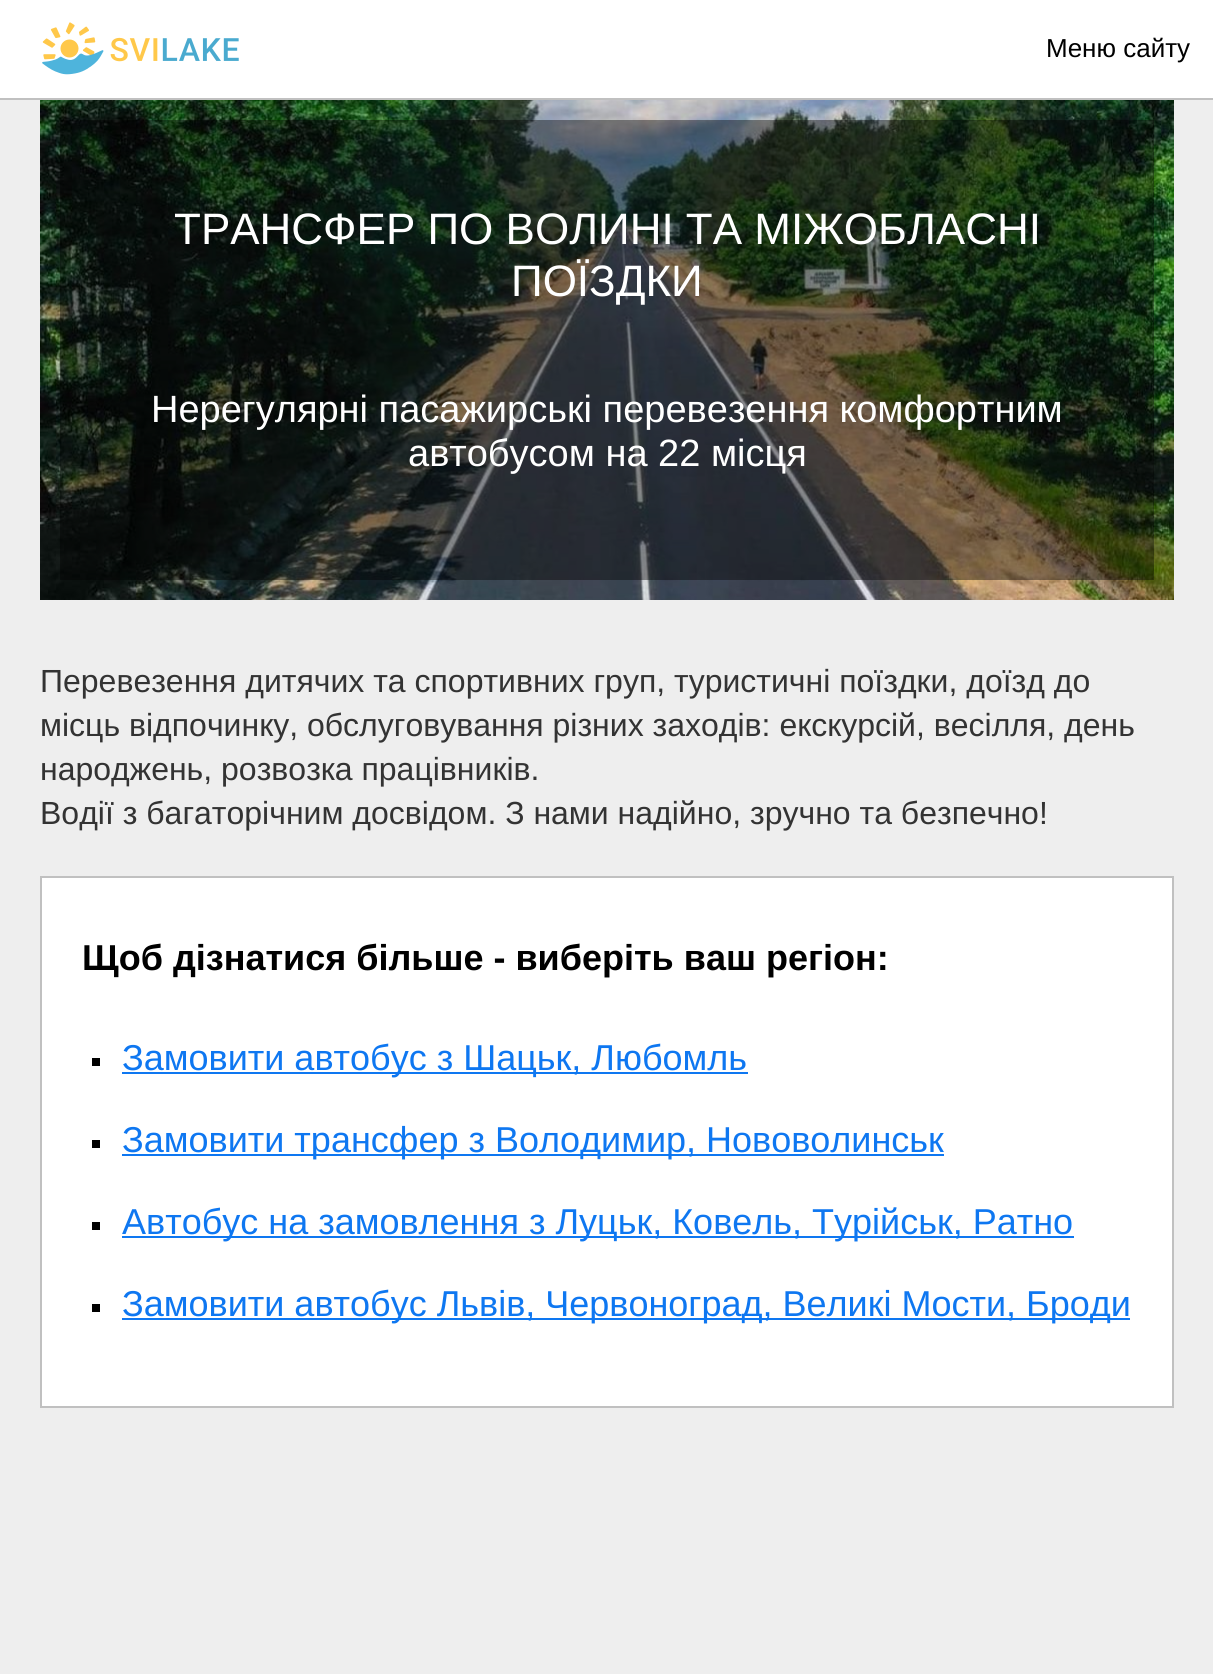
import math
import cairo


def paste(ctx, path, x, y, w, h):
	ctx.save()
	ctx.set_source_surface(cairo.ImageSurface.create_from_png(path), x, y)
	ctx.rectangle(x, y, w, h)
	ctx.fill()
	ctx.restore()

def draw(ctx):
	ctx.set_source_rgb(0.933, 0.933, 0.933)
	ctx.paint()
	ctx.set_source_rgb(1, 1, 1)
	ctx.rectangle(0, 0, 1213, 98)
	ctx.fill()
	ctx.set_source_rgb(0.753, 0.753, 0.753)
	ctx.rectangle(0, 98, 1213, 2)
	ctx.fill()
	paste(ctx, 'media/1.png', 42, 22, 197, 53)
	ctx.select_font_face('Liberation Sans')
	ctx.set_font_size(26)
	ctx.set_source_rgb(0, 0, 0)
	ctx.move_to(1046, 57)
	ctx.show_text('Меню сайту')
	paste(ctx, 'media/2.png', 40, 100, 1134, 500)
	ctx.set_source_rgba(0, 0, 0, 0.4)
	ctx.rectangle(60, 120, 1094, 460)
	ctx.fill()
	ctx.set_font_size(44)
	ctx.set_source_rgb(1, 1, 1)
	ctx.move_to(174, 244)
	ctx.show_text('ТРАНСФЕР ПО ВОЛИНІ ТА МІЖОБЛАСНІ')
	ctx.move_to(511, 296)
	ctx.show_text('ПОЇЗДКИ')
	ctx.set_font_size(38)
	ctx.move_to(151, 422)
	ctx.show_text('Нерегулярні пасажирські перевезення комфортним')
	ctx.move_to(408, 466)
	ctx.show_text('автобусом на 22 місця')
	ctx.set_font_size(32)
	ctx.set_source_rgb(0.2, 0.2, 0.2)
	for x, y, s in [
		(40, 692, 'Перевезення дитячих та спортивних груп, туристичні поїздки, доїзд до'),
		(40, 736, 'місць відпочинку, обслуговування різних заходів: екскурсій, весілля, день'),
		(40, 780, 'народжень, розвозка працівників.'),
		(40, 824, 'Водії з багаторічним досвідом. З нами надійно, зручно та безпечно!'),
	]:
		ctx.move_to(x, y)
		ctx.show_text(s)
	ctx.set_source_rgb(1, 1, 1)
	ctx.rectangle(41, 877, 1132, 530)
	ctx.fill_preserve()
	ctx.set_source_rgb(0.753, 0.753, 0.753)
	ctx.stroke()
	ctx.select_font_face('Liberation Sans', cairo.FONT_SLANT_NORMAL, cairo.FONT_WEIGHT_BOLD)
	ctx.set_font_size(36)
	ctx.set_source_rgb(0, 0, 0)
	ctx.move_to(82, 970)
	ctx.show_text('Щоб дізнатися більше - виберіть ваш регіон:')
	ctx.rectangle(92, 1058, 8, 8)
	ctx.fill()
	ctx.set_source_rgb(0.055, 0.467, 0.945)
	ctx.rectangle(122, 1072, 626, 2)
	ctx.fill()
	ctx.select_font_face('Liberation Sans')
	ctx.move_to(122, 1070)
	ctx.show_text('Замовити автобус з Шацьк, Любомль')
	ctx.set_source_rgb(0, 0, 0)
	ctx.rectangle(92, 1140, 8, 8)
	ctx.fill()
	ctx.set_source_rgb(0.055, 0.467, 0.945)
	ctx.rectangle(122, 1154, 822, 2)
	ctx.fill()
	ctx.move_to(122, 1152)
	ctx.show_text('Замовити трансфер з Володимир, Нововолинськ')
	ctx.set_source_rgb(0, 0, 0)
	ctx.rectangle(92, 1222, 8, 8)
	ctx.fill()
	ctx.set_source_rgb(0.055, 0.467, 0.945)
	ctx.rectangle(122, 1236, 952, 2)
	ctx.fill()
	ctx.move_to(122, 1234)
	ctx.show_text('Автобус на замовлення з Луцьк, Ковель, Турійськ, Ратно')
	ctx.set_source_rgb(0, 0, 0)
	ctx.rectangle(92, 1304, 8, 8)
	ctx.fill()
	ctx.set_source_rgb(0.055, 0.467, 0.945)
	ctx.rectangle(122, 1318, 1008, 2)
	ctx.fill()
	ctx.move_to(122, 1316)
	ctx.show_text('Замовити автобус Львів, Червоноград, Великі Мости, Броди')


surface = cairo.ImageSurface(cairo.FORMAT_RGB24, 1213, 1674)
ctx = cairo.Context(surface)
options = cairo.FontOptions()
options.set_hint_metrics(cairo.HINT_METRICS_OFF)
options.set_hint_style(cairo.HINT_STYLE_NONE)
ctx.set_font_options(options)
ctx.set_miter_limit(4)
draw(ctx)
surface.write_to_png('image.png')
